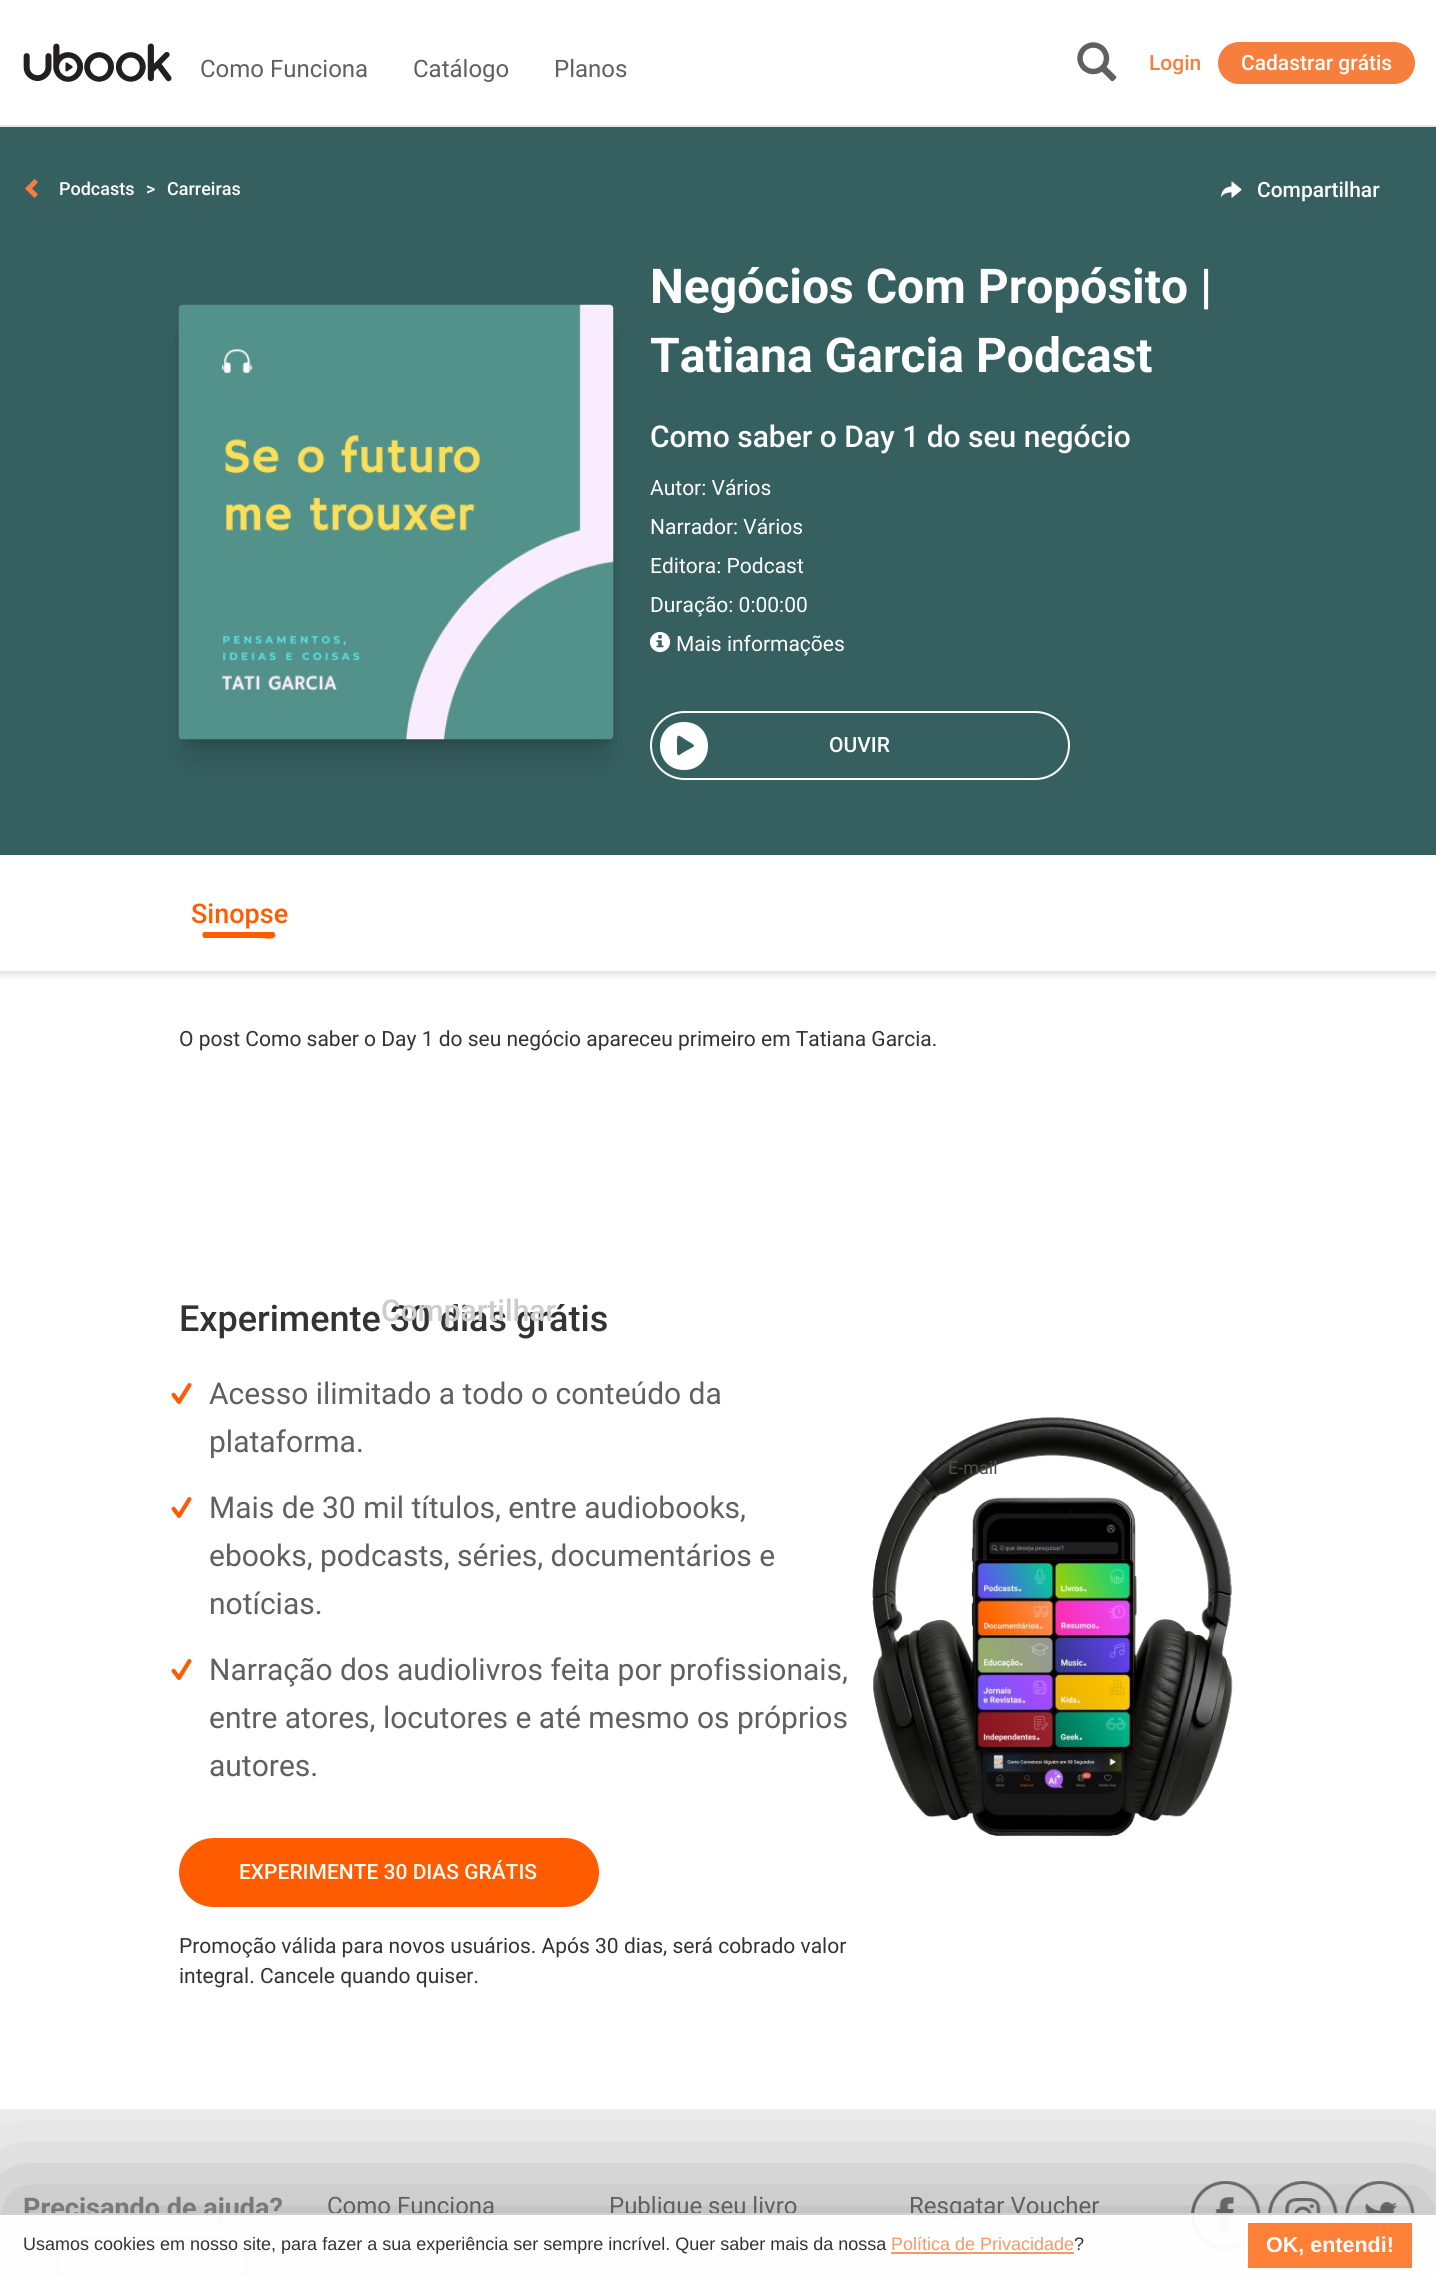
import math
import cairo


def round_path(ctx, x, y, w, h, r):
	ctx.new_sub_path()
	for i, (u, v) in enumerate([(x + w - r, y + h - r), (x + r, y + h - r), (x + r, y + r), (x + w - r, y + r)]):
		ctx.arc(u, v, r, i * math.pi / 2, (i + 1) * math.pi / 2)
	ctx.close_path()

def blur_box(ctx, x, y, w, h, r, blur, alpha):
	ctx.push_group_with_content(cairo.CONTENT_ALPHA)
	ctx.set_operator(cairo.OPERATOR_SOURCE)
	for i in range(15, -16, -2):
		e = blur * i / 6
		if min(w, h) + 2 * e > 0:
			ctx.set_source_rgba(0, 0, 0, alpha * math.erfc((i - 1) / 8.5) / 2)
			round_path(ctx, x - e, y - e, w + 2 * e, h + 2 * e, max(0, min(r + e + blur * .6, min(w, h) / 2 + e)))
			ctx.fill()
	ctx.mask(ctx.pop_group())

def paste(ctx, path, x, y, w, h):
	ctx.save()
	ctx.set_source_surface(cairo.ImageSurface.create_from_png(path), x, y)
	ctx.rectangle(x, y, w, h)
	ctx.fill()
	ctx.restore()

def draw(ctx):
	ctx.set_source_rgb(1, 1, 1)
	ctx.paint()
	ctx.set_source_rgb(0.906, 0.906, 0.906)
	ctx.rectangle(0, 125, 1436, 2)
	ctx.fill()
	paste(ctx, 'media/1.png', 23, 43, 149, 39)
	ctx.select_font_face('Roboto')
	ctx.set_font_size(24)
	ctx.set_source_rgb(0.376, 0.376, 0.376)
	for x, y, s in [
		(200, 77, 'Como Funciona'),
		(413, 77, 'Catálogo'),
		(554, 77, 'Planos'),
	]:
		ctx.move_to(x, y)
		ctx.show_text(s)
	paste(ctx, 'media/2.png', 1077, 42, 40, 40)
	ctx.select_font_face('Roboto Medium')
	ctx.set_font_size(21)
	ctx.set_source_rgb(0.965, 0.498, 0.243)
	ctx.move_to(1149, 70)
	ctx.show_text('Login')
	round_path(ctx, 1218, 42, 197, 42, 21)
	ctx.fill()
	ctx.set_source_rgb(1, 1, 1)
	ctx.move_to(1241, 70)
	ctx.show_text('Cadastrar grátis')
	ctx.set_source_rgb(0.212, 0.376, 0.376)
	ctx.rectangle(0, 127, 1436, 728)
	ctx.fill()
	ctx.set_source_rgb(0.965, 0.498, 0.243)
	ctx.new_path()
	ctx.move_to(38, 182)
	ctx.line_to(32, 188.5)
	ctx.line_to(38, 194.5)
	ctx.line_to(34.5, 198)
	ctx.line_to(25, 188.5)
	ctx.line_to(34.5, 179)
	ctx.close_path()
	ctx.fill()
	ctx.set_font_size(18)
	ctx.set_source_rgb(1, 1, 1)
	for x, y, s in [
		(59, 195, 'Podcasts'),
		(146, 195, '>'),
		(167, 195, 'Carreiras'),
	]:
		ctx.move_to(x, y)
		ctx.show_text(s)
	paste(ctx, 'media/3.png', 1221, 181, 21, 17)
	ctx.set_font_size(21)
	ctx.move_to(1257, 197)
	ctx.show_text('Compartilhar')
	ctx.set_source_rgb(0, 0, 0)
	blur_box(ctx, 185, 317, 423, 423, 0, 6, 0.2)
	round_path(ctx, 651, 712, 418, 67, 33.5)
	ctx.set_source_rgb(1, 1, 1)
	ctx.stroke()
	ctx.set_source_rgb(0, 0, 0)
	blur_box(ctx, 191, 341, 411, 411, 0, 18, 0.2)
	paste(ctx, 'media/4.png', 178, 304, 436, 436)
	ctx.select_font_face('Roboto', cairo.FONT_SLANT_NORMAL, cairo.FONT_WEIGHT_BOLD)
	ctx.set_font_size(48)
	ctx.set_source_rgb(1, 1, 1)
	ctx.move_to(650, 303)
	ctx.show_text('Negócios Com Propósito |')
	ctx.move_to(650, 372)
	ctx.show_text('Tatiana Garcia Podcast')
	ctx.select_font_face('Roboto Medium')
	ctx.set_font_size(30)
	ctx.move_to(650, 447)
	ctx.show_text('Como saber o Day 1 do seu negócio')
	ctx.select_font_face('Roboto')
	ctx.set_font_size(21)
	for x, y, s in [
		(650, 495, 'Autor: Vários'),
		(650, 534, 'Narrador: Vários'),
		(650, 573, 'Editora: Podcast'),
		(650, 612, 'Duração: 0:00:00'),
	]:
		ctx.move_to(x, y)
		ctx.show_text(s)
	paste(ctx, 'media/5.png', 649, 631, 22, 22)
	ctx.move_to(676, 651)
	ctx.show_text('Mais informações')
	ctx.new_path()
	ctx.move_to(684, 722)
	ctx.curve_to(652, 722, 652, 770, 684, 770)
	ctx.curve_to(716, 770, 716, 722, 684, 722)
	ctx.close_path()
	ctx.move_to(693, 747)
	ctx.line_to(684, 752)
	ctx.curve_to(679, 755, 677, 758, 677, 751)
	ctx.line_to(677, 740)
	ctx.curve_to(677, 732, 681, 737, 686, 740)
	ctx.curve_to(687, 741, 697, 745, 693, 747)
	ctx.close_path()
	ctx.fill()
	ctx.select_font_face('Roboto Medium')
	ctx.move_to(829, 752)
	ctx.show_text('OUVIR')
	ctx.set_source_rgb(0, 0, 0)
	blur_box(ctx, 0, 858, 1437, 116, 0, 4, 0.15)
	ctx.set_source_rgb(1, 1, 1)
	ctx.rectangle(0, 855, 1436, 116)
	ctx.fill()
	ctx.set_font_size(27)
	ctx.set_source_rgb(1, 0.357, 0)
	ctx.move_to(191, 923)
	ctx.show_text('Sinopse')
	ctx.new_path()
	ctx.move_to(204, 932)
	ctx.line_to(274, 932)
	ctx.line_to(275, 934)
	ctx.curve_to(277, 941, 264, 938, 262, 938)
	ctx.line_to(204, 938)
	ctx.curve_to(202, 937, 202, 932, 204, 932)
	ctx.close_path()
	ctx.fill()
	ctx.select_font_face('Roboto')
	ctx.set_font_size(21)
	ctx.set_source_rgb(0.2, 0.2, 0.2)
	ctx.move_to(179, 1046)
	ctx.show_text('O post Como saber o Day 1 do seu negócio apareceu primeiro em Tatiana Garcia.')
	ctx.select_font_face('Roboto Medium')
	ctx.set_font_size(36)
	ctx.move_to(179, 1331)
	ctx.show_text('Experimente 30 dias grátis')
	paste(ctx, 'media/6.png', 171, 1383, 21, 21)
	ctx.select_font_face('Roboto')
	ctx.set_font_size(30)
	ctx.set_source_rgb(0.376, 0.376, 0.376)
	ctx.move_to(209, 1404)
	ctx.show_text('Acesso ilimitado a todo o conteúdo da')
	ctx.move_to(209, 1452)
	ctx.show_text('plataforma.')
	paste(ctx, 'media/6.png', 171, 1497, 21, 21)
	for x, y, s in [
		(209, 1518, 'Mais de 30 mil títulos, entre audiobooks,'),
		(209, 1566, 'ebooks, podcasts, séries, documentários e'),
		(209, 1614, 'notícias.'),
	]:
		ctx.move_to(x, y)
		ctx.show_text(s)
	paste(ctx, 'media/6.png', 171, 1659, 21, 21)
	for x, y, s in [
		(209, 1680, 'Narração dos audiolivros feita por profissionais,'),
		(209, 1728, 'entre atores, locutores e até mesmo os próprios'),
		(209, 1776, 'autores.'),
	]:
		ctx.move_to(x, y)
		ctx.show_text(s)
	ctx.set_source_rgb(1, 0.357, 0)
	round_path(ctx, 180, 1839, 418, 67, 33.5)
	ctx.fill_preserve()
	ctx.stroke()
	ctx.select_font_face('Roboto Medium')
	ctx.set_font_size(21)
	ctx.set_source_rgb(1, 1, 1)
	ctx.move_to(239, 1879)
	ctx.show_text('EXPERIMENTE 30 DIAS GRÁTIS')
	ctx.select_font_face('Roboto')
	ctx.set_source_rgb(0.2, 0.2, 0.2)
	ctx.move_to(179, 1953)
	ctx.show_text('Promoção válida para novos usuários. Após 30 dias, será cobrado valor')
	ctx.move_to(179, 1983)
	ctx.show_text('integral. Cancele quando quiser.')
	paste(ctx, 'media/7.png', 872, 1417, 361, 420)
	ctx.set_source_rgb(0.949, 0.949, 0.949)
	ctx.rectangle(0, 2109, 1436, 167)
	ctx.fill()
	round_path(ctx, 57.5, 2239.5, 190, 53, 26.5)
	ctx.set_source_rgb(0.569, 0.569, 0.569)
	ctx.set_line_width(3)
	ctx.stroke()
	paste(ctx, 'media/8.png', 1191, 2181, 70, 69)
	paste(ctx, 'media/9.png', 1268, 2181, 70, 39)
	paste(ctx, 'media/10.png', 1345, 2181, 70, 39)
	ctx.save()
	ctx.rectangle(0, 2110, 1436, 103)
	ctx.clip()
	ctx.set_source_rgb(0, 0, 0)
	blur_box(ctx, 12, 2195, 1413, 40, 0, 64, 0.3)
	ctx.restore()
	ctx.select_font_face('Roboto', cairo.FONT_SLANT_NORMAL, cairo.FONT_WEIGHT_BOLD)
	ctx.set_font_size(27)
	ctx.set_source_rgb(0.475, 0.475, 0.475)
	ctx.move_to(23, 2217)
	ctx.show_text('Precisando de ajuda?')
	ctx.select_font_face('Roboto')
	ctx.set_font_size(24)
	ctx.set_source_rgb(0.376, 0.376, 0.376)
	for x, y, s in [
		(327, 2214, 'Como Funciona'),
		(609, 2214, 'Publique seu livro'),
		(909, 2214, 'Resgatar Voucher'),
	]:
		ctx.move_to(x, y)
		ctx.show_text(s)
	ctx.set_source_rgba(1, 1, 1, 0.96)
	ctx.rectangle(0, 2213, 1436, 63)
	ctx.fill()
	ctx.set_source_rgba(0, 0, 0, 0.18)
	ctx.rectangle(0, 2213, 1436, 2)
	ctx.fill()
	ctx.select_font_face('Liberation Sans')
	ctx.set_font_size(18)
	ctx.set_source_rgb(0.2, 0.2, 0.2)
	ctx.move_to(23, 2250)
	ctx.show_text('Usamos cookies em nosso site, para fazer a sua experiência ser sempre incrível. Quer saber mais da nossa')
	ctx.set_source_rgb(0.973, 0.596, 0.392)
	ctx.move_to(891, 2250)
	ctx.show_text('Política de Privacidade')
	ctx.set_source_rgba(0.965, 0.498, 0.243, 0.8)
	ctx.rectangle(891, 2252, 183, 2)
	ctx.fill()
	ctx.set_source_rgb(0.2, 0.2, 0.2)
	ctx.move_to(1074, 2250)
	ctx.show_text('?')
	ctx.set_source_rgb(1, 0.502, 0.212)
	ctx.rectangle(1246.5, 2221.5, 167, 48)
	ctx.fill_preserve()
	ctx.set_source_rgb(1, 1, 1)
	ctx.stroke()
	ctx.select_font_face('Liberation Sans', cairo.FONT_SLANT_NORMAL, cairo.FONT_WEIGHT_BOLD)
	ctx.set_font_size(21.5)
	ctx.move_to(1266, 2252)
	ctx.show_text('OK, entendi!')
	ctx.select_font_face('Roboto Medium')
	ctx.set_font_size(30)
	ctx.set_source_rgb(0.8, 0.8, 0.8)
	ctx.move_to(381, 1321)
	ctx.show_text('Compartilhar')
	ctx.select_font_face('Roboto')
	ctx.set_font_size(18)
	ctx.set_source_rgb(0.306, 0.306, 0.302)
	ctx.move_to(948, 1474)
	ctx.show_text('E-mail')


surface = cairo.ImageSurface(cairo.FORMAT_RGB24, 1436, 2276)
ctx = cairo.Context(surface)
options = cairo.FontOptions()
options.set_hint_metrics(cairo.HINT_METRICS_OFF)
options.set_hint_style(cairo.HINT_STYLE_NONE)
ctx.set_font_options(options)
ctx.set_miter_limit(4)
draw(ctx)
surface.write_to_png('image.png')
